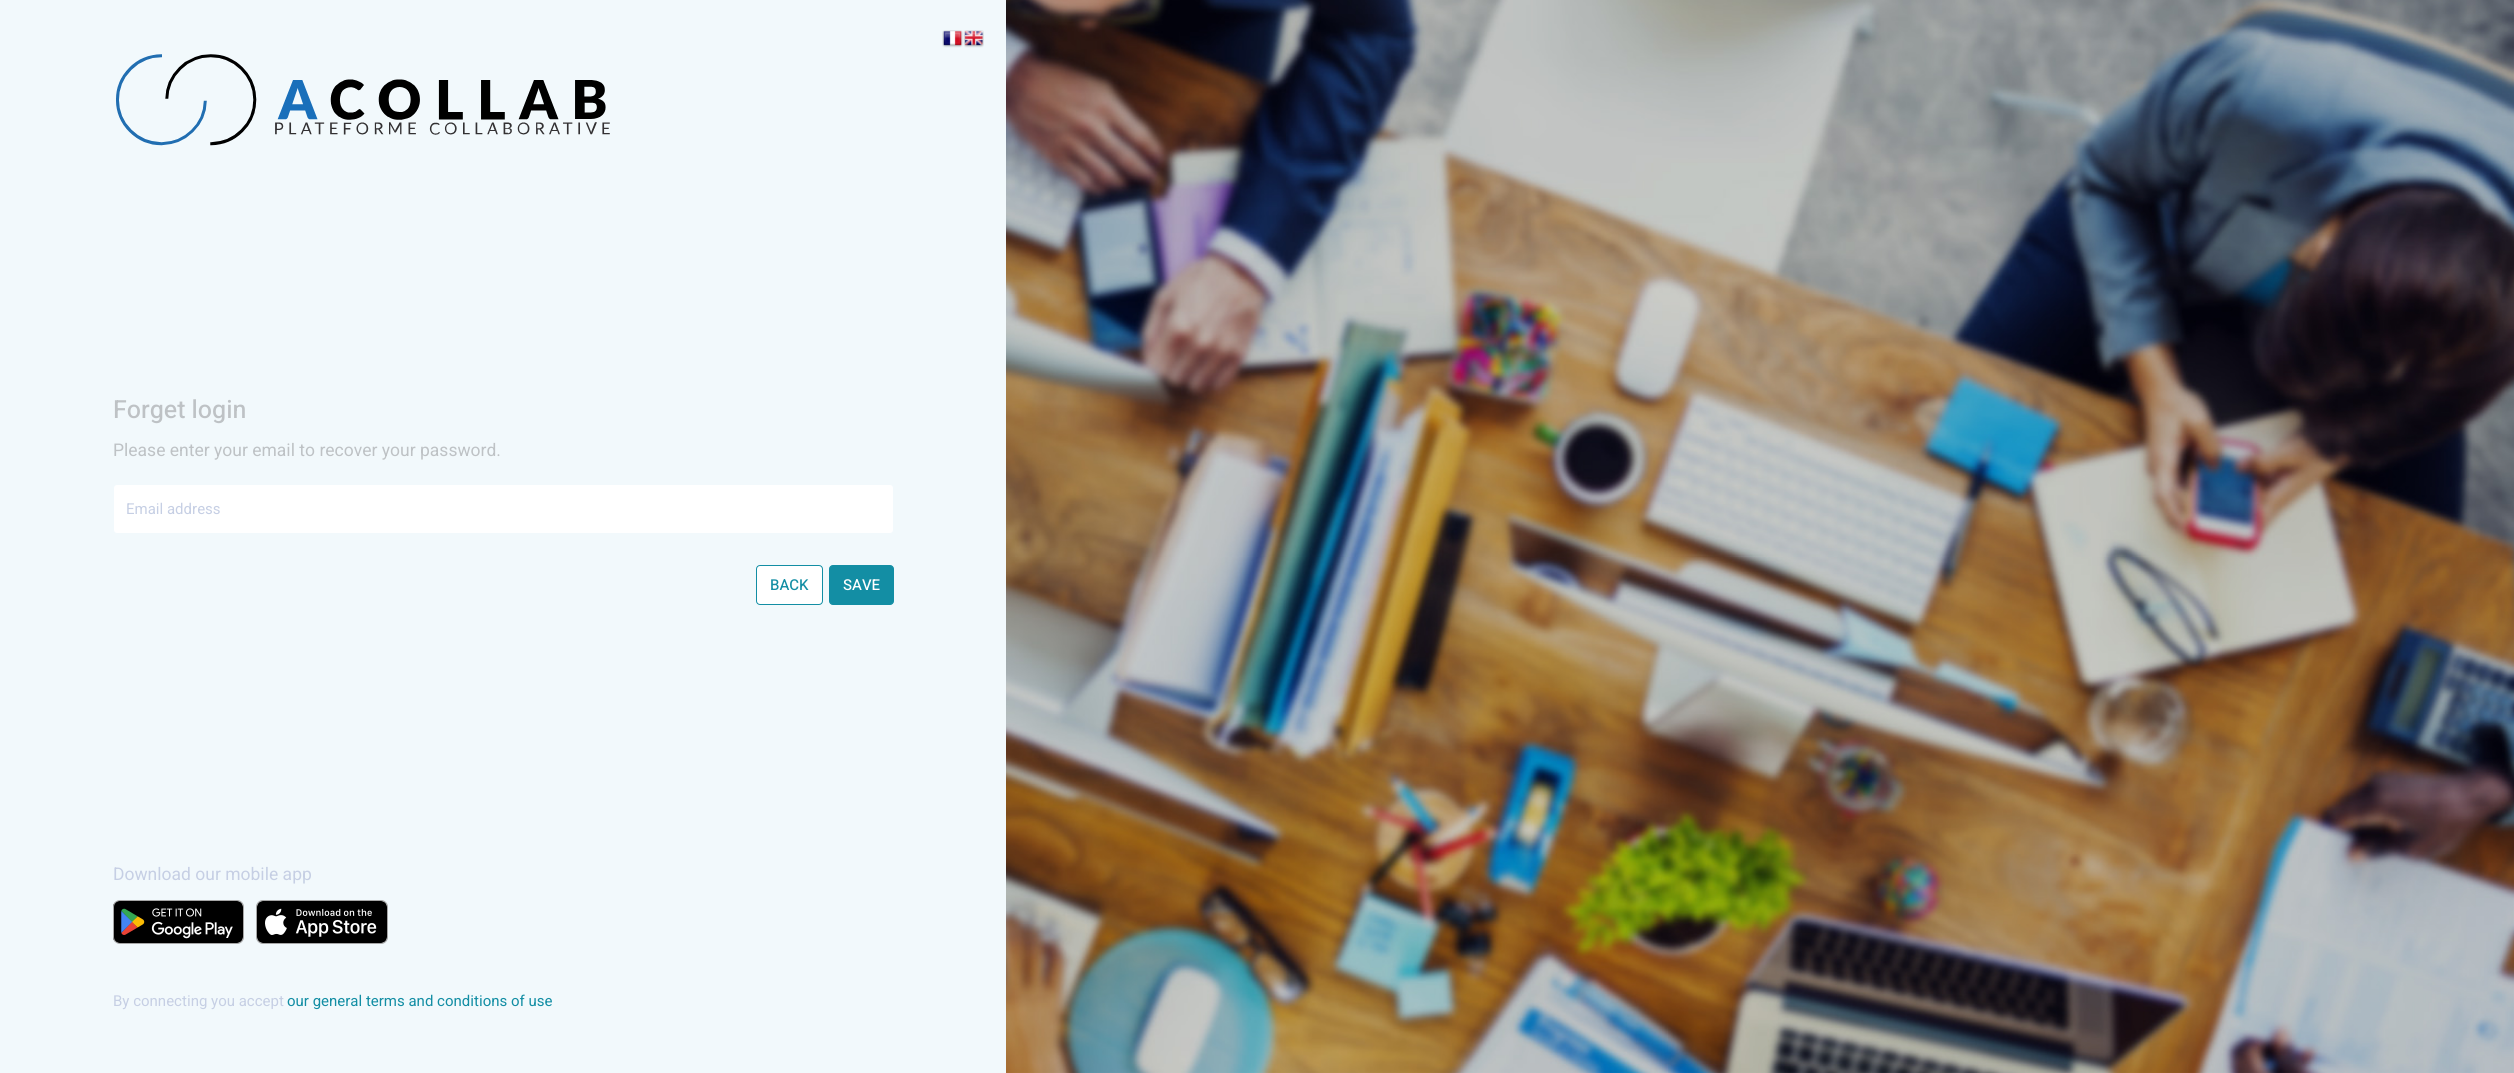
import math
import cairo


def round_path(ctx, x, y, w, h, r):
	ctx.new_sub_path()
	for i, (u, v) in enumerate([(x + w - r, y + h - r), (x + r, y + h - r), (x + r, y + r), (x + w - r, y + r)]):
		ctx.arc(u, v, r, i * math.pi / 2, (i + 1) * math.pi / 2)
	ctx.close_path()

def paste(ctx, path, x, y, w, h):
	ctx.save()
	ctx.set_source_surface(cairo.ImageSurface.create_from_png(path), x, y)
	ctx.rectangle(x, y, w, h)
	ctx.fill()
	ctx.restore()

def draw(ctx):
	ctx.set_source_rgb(1, 1, 1)
	ctx.paint()
	paste(ctx, 'media/1.png', 1006, 0, 1508, 1073)
	ctx.set_source_rgb(0.949, 0.973, 0.988)
	ctx.rectangle(0, 0, 1006, 1073)
	ctx.fill()
	paste(ctx, 'media/2.png', 942, 30, 21, 18)
	paste(ctx, 'media/3.png', 963, 30, 21, 18)
	paste(ctx, 'media/4.png', 116, 54, 494, 92)
	ctx.select_font_face('Heebo Medium')
	ctx.set_font_size(25)
	ctx.set_source_rgb(0.745, 0.761, 0.773)
	ctx.move_to(113, 418)
	ctx.show_text('Forget login')
	ctx.select_font_face('Heebo')
	ctx.set_font_size(17.5)
	ctx.move_to(113, 456)
	ctx.show_text('Please enter your email to recover your password.')
	ctx.set_source_rgb(1, 1, 1)
	round_path(ctx, 113.5, 484.5, 780, 49, 3.5)
	ctx.fill_preserve()
	ctx.set_source_rgb(0.949, 0.973, 0.988)
	ctx.set_line_width(1)
	ctx.stroke()
	ctx.set_font_size(15)
	ctx.set_source_rgb(0.776, 0.812, 0.894)
	ctx.move_to(126, 514)
	ctx.show_text('Email address')
	ctx.set_source_rgb(1, 1, 1)
	round_path(ctx, 756.5, 565.5, 66, 39, 3.5)
	ctx.fill_preserve()
	ctx.set_source_rgb(0.078, 0.557, 0.643)
	ctx.stroke()
	ctx.select_font_face('Heebo Medium')
	ctx.move_to(770, 590)
	ctx.show_text('BACK')
	round_path(ctx, 829.5, 565.5, 64, 39, 3.5)
	ctx.fill_preserve()
	ctx.stroke()
	ctx.set_source_rgb(1, 1, 1)
	ctx.move_to(843, 590)
	ctx.show_text('SAVE')
	ctx.select_font_face('Heebo')
	ctx.set_font_size(17.5)
	ctx.set_source_rgb(0.776, 0.812, 0.894)
	ctx.move_to(113, 880)
	ctx.show_text('Download our mobile app')
	paste(ctx, 'media/5.png', 113, 900, 131, 44)
	paste(ctx, 'media/6.png', 256, 900, 132, 44)
	ctx.set_font_size(15)
	ctx.move_to(113, 1006)
	ctx.show_text('By connecting you accept')
	ctx.set_source_rgb(0.078, 0.557, 0.643)
	ctx.move_to(287, 1006)
	ctx.show_text('our general terms and conditions of use')


surface = cairo.ImageSurface(cairo.FORMAT_RGB24, 2514, 1073)
ctx = cairo.Context(surface)
options = cairo.FontOptions()
options.set_hint_metrics(cairo.HINT_METRICS_OFF)
options.set_hint_style(cairo.HINT_STYLE_NONE)
ctx.set_font_options(options)
ctx.set_miter_limit(4)
draw(ctx)
surface.write_to_png('image.png')
